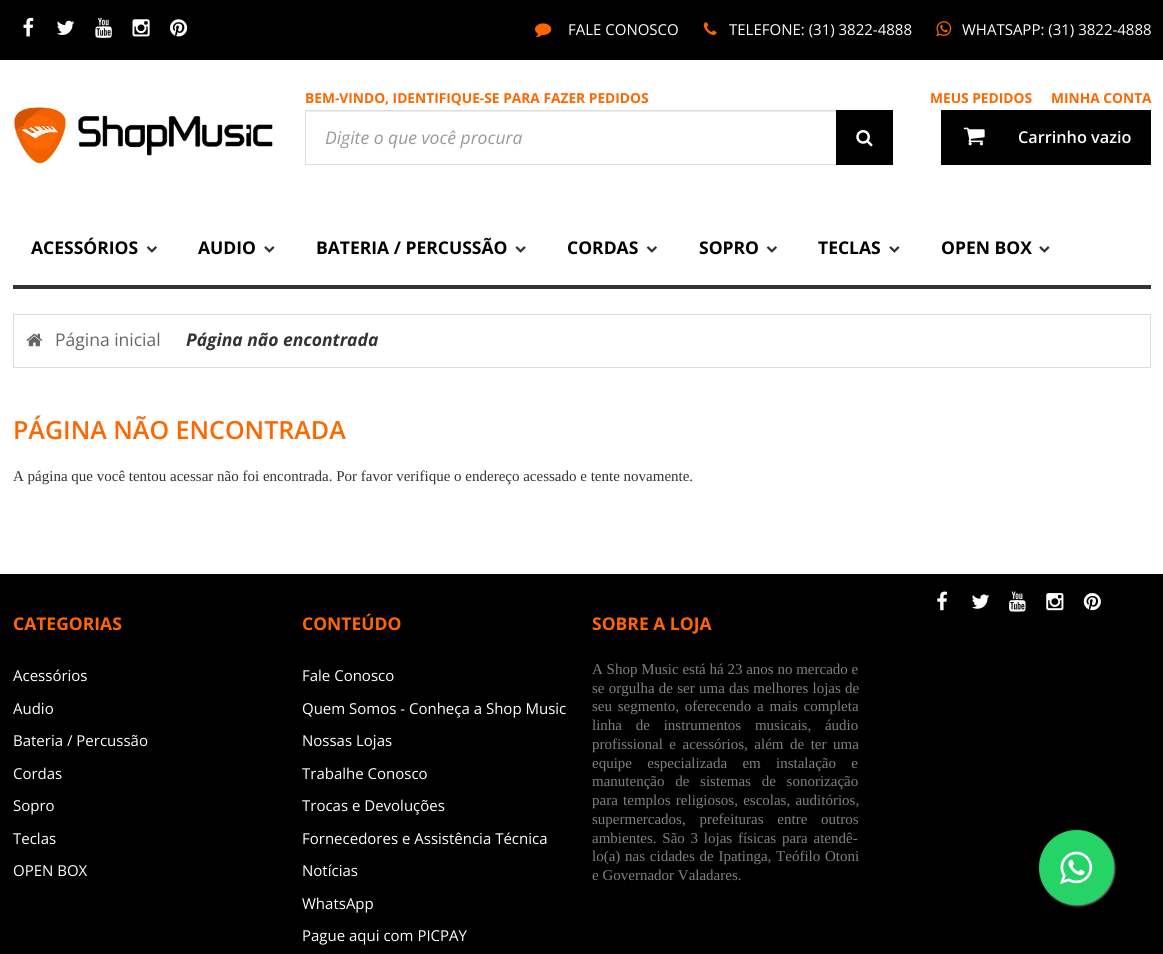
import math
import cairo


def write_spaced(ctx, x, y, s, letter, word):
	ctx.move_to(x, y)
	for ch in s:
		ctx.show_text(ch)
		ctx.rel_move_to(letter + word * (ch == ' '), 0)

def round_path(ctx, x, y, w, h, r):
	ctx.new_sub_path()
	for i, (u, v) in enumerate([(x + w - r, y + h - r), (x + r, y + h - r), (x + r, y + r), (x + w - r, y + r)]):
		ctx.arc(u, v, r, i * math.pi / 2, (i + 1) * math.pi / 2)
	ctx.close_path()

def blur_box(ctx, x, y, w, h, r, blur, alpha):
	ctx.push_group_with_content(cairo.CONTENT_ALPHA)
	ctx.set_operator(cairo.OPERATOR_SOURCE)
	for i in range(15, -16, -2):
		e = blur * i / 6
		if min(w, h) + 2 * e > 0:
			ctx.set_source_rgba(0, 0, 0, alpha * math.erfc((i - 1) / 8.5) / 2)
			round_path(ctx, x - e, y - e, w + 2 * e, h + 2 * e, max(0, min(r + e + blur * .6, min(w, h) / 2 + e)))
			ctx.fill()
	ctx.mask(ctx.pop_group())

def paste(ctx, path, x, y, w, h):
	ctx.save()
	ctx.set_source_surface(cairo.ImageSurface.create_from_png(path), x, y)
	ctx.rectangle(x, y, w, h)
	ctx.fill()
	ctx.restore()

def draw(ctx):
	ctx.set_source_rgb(1, 1, 1)
	ctx.paint()
	ctx.set_source_rgb(0, 0, 0)
	ctx.rectangle(0, 0, 1163, 60)
	ctx.fill()
	paste(ctx, 'media/1.png', 23, 17, 11, 20)
	paste(ctx, 'media/2.png', 57, 20, 18, 15)
	paste(ctx, 'media/3.png', 95, 17, 17, 21)
	paste(ctx, 'media/4.png', 132, 19, 18, 18)
	paste(ctx, 'media/5.png', 170, 19, 18, 18)
	paste(ctx, 'media/6.png', 535, 23, 17, 15)
	ctx.select_font_face('Open Sans')
	ctx.set_font_size(15)
	ctx.set_source_rgb(1, 1, 1)
	ctx.move_to(568, 35)
	ctx.show_text('FALE CONOSCO')
	paste(ctx, 'media/7.png', 703, 22, 14, 13)
	ctx.move_to(729, 35)
	ctx.show_text('TELEFONE: (31) 3822-4888')
	paste(ctx, 'media/8.png', 936, 21, 16, 16)
	ctx.move_to(962, 35)
	ctx.show_text('WHATSAPP: (31) 3822-4888')
	paste(ctx, 'media/9.png', 14, 107, 259, 57)
	ctx.select_font_face('Open Sans', cairo.FONT_SLANT_NORMAL, cairo.FONT_WEIGHT_BOLD)
	ctx.set_font_size(13.75)
	ctx.set_source_rgb(1, 0.4, 0)
	for x, y, s in [
		(305, 103, 'BEM-VINDO, IDENTIFIQUE-SE PARA FAZER PEDIDOS'),
		(930, 103, 'MEUS PEDIDOS'),
		(1051, 103, 'MINHA CONTA'),
	]:
		ctx.move_to(x, y)
		ctx.show_text(s)
	ctx.set_source_rgb(0.925, 0.925, 0.925)
	ctx.rectangle(306, 111, 530, 1)
	ctx.fill()
	ctx.rectangle(305.5, 110.5, 543, 54)
	ctx.set_source_rgb(0.867, 0.867, 0.867)
	ctx.set_line_width(1)
	ctx.stroke()
	ctx.select_font_face('Open Sans', cairo.FONT_SLANT_ITALIC)
	ctx.set_font_size(17.5)
	ctx.set_source_rgb(0.6, 0.6, 0.6)
	ctx.move_to(325, 144)
	ctx.show_text('Digite o que você procura')
	ctx.set_source_rgb(0, 0, 0)
	ctx.rectangle(836, 110, 57, 55)
	ctx.fill()
	paste(ctx, 'media/10.png', 856, 130, 17, 17)
	ctx.rectangle(941, 110, 210, 55)
	ctx.fill()
	paste(ctx, 'media/11.png', 963, 127, 22, 19)
	ctx.select_font_face('Open Sans SemiBold')
	ctx.set_font_size(16.25)
	ctx.set_source_rgb(1, 1, 1)
	ctx.move_to(1018, 143)
	ctx.show_text('Carrinho vazio')
	ctx.set_source_rgb(0.2, 0.2, 0.2)
	ctx.rectangle(13, 285, 1138, 4)
	ctx.fill()
	ctx.select_font_face('Open Sans', cairo.FONT_SLANT_NORMAL, cairo.FONT_WEIGHT_BOLD)
	ctx.set_font_size(17.5)
	ctx.set_source_rgb(0, 0, 0)
	ctx.move_to(31, 254)
	ctx.show_text('ACESSÓRIOS')
	paste(ctx, 'media/12.png', 146, 246, 11, 7)
	ctx.move_to(198, 254)
	ctx.show_text('AUDIO')
	paste(ctx, 'media/13.png', 264, 246, 11, 7)
	ctx.move_to(316, 254)
	ctx.show_text('BATERIA / PERCUSSÃO')
	paste(ctx, 'media/14.png', 515, 246, 11, 7)
	ctx.move_to(567, 254)
	ctx.show_text('CORDAS')
	paste(ctx, 'media/12.png', 646, 246, 11, 7)
	ctx.move_to(699, 254)
	ctx.show_text('SOPRO')
	paste(ctx, 'media/12.png', 766, 246, 11, 7)
	ctx.move_to(818, 254)
	ctx.show_text('TECLAS')
	paste(ctx, 'media/13.png', 889, 246, 11, 7)
	ctx.move_to(941, 254)
	ctx.show_text('OPEN BOX')
	paste(ctx, 'media/13.png', 1039, 246, 11, 7)
	ctx.rectangle(13.5, 314.5, 1137, 53)
	ctx.set_source_rgb(0.867, 0.867, 0.867)
	ctx.stroke()
	paste(ctx, 'media/15.png', 26, 333, 17, 14)
	ctx.select_font_face('Open Sans')
	ctx.set_source_rgb(0.4, 0.4, 0.4)
	ctx.move_to(55, 346)
	ctx.show_text('Página inicial')
	ctx.select_font_face('Open Sans', cairo.FONT_SLANT_ITALIC, cairo.FONT_WEIGHT_BOLD)
	ctx.set_source_rgb(0.2, 0.2, 0.2)
	ctx.move_to(186, 346)
	ctx.show_text('Página não encontrada')
	ctx.select_font_face('Open Sans SemiBold')
	ctx.set_font_size(25)
	ctx.set_source_rgb(1, 0.4, 0)
	ctx.move_to(13, 439)
	ctx.show_text('PÁGINA NÃO ENCONTRADA')
	ctx.select_font_face('Liberation Serif')
	ctx.set_font_size(15)
	ctx.set_source_rgb(0.2, 0.2, 0.2)
	ctx.move_to(13, 481)
	ctx.show_text('A página que você tentou acessar não foi encontrada. Por favor verifique o endereço acessado e tente novamente.')
	ctx.set_source_rgb(0, 0, 0)
	ctx.rectangle(0, 574, 1163, 380)
	ctx.fill()
	paste(ctx, 'media/16.png', 937, 591, 10, 20)
	paste(ctx, 'media/17.png', 972, 594, 18, 15)
	paste(ctx, 'media/18.png', 1009, 591, 17, 21)
	paste(ctx, 'media/19.png', 1046, 593, 18, 18)
	paste(ctx, 'media/20.png', 1083, 593, 18, 18)
	ctx.select_font_face('Open Sans', cairo.FONT_SLANT_NORMAL, cairo.FONT_WEIGHT_BOLD)
	ctx.set_font_size(17.5)
	ctx.set_source_rgb(1, 0.4, 0)
	ctx.move_to(13, 630)
	ctx.show_text('CATEGORIAS')
	ctx.select_font_face('Open Sans')
	ctx.set_font_size(15)
	ctx.set_source_rgb(1, 1, 1)
	for x, y, s in [
		(13, 681, 'Acessórios'),
		(13, 714, 'Audio'),
		(13, 746, 'Bateria / Percussão'),
		(13, 779, 'Cordas'),
		(13, 811, 'Sopro'),
		(13, 844, 'Teclas'),
		(13, 876, 'OPEN BOX'),
	]:
		ctx.move_to(x, y)
		ctx.show_text(s)
	ctx.select_font_face('Open Sans', cairo.FONT_SLANT_NORMAL, cairo.FONT_WEIGHT_BOLD)
	ctx.set_font_size(17.5)
	ctx.set_source_rgb(1, 0.4, 0)
	ctx.move_to(302, 630)
	ctx.show_text('CONTEÚDO')
	ctx.select_font_face('Open Sans')
	ctx.set_font_size(15)
	ctx.set_source_rgb(1, 1, 1)
	for x, y, s in [
		(302, 681, 'Fale Conosco'),
		(302, 714, 'Quem Somos - Conheça a Shop Music'),
		(302, 746, 'Nossas Lojas'),
		(302, 779, 'Trabalhe Conosco'),
		(302, 811, 'Trocas e Devoluções'),
		(302, 844, 'Fornecedores e Assistência Técnica'),
		(302, 876, 'Notícias'),
		(302, 909, 'WhatsApp'),
		(302, 941, 'Pague aqui com PICPAY'),
	]:
		ctx.move_to(x, y)
		ctx.show_text(s)
	ctx.select_font_face('Open Sans', cairo.FONT_SLANT_NORMAL, cairo.FONT_WEIGHT_BOLD)
	ctx.set_font_size(17.5)
	ctx.set_source_rgb(1, 0.4, 0)
	ctx.move_to(592, 630)
	ctx.show_text('SOBRE A LOJA')
	ctx.select_font_face('Liberation Serif')
	ctx.set_font_size(15)
	ctx.set_source_rgb(0.502, 0.502, 0.502)
	ctx.move_to(592, 674)
	ctx.show_text('A Shop Music está há 23 anos no mercado e')
	write_spaced(ctx, 592, 693, 'se orgulha de ser uma das melhores lojas de', 0, 0.5)
	write_spaced(ctx, 592, 711, 'seu segmento, oferecendo a mais completa', 0, 2)
	write_spaced(ctx, 592, 730, 'linha de instrumentos musicais, áudio', 0, 10)
	write_spaced(ctx, 592, 749, 'profissional e acessórios, além de ter uma', 0, 2.75)
	write_spaced(ctx, 592, 768, 'equipe especializada em instalação e', 0, 11.5)
	write_spaced(ctx, 592, 786, 'manutenção de sistemas de sonorização', 0, 7)
	write_spaced(ctx, 592, 805, 'para templos religiosos, escolas, auditórios,', 0, 1.5)
	write_spaced(ctx, 592, 824, 'supermercados, prefeituras entre outros', 0, 10)
	write_spaced(ctx, 592, 843, 'ambientes. São 3 lojas físicas para atendê-', 0, 2)
	write_spaced(ctx, 592, 861, 'lo(a) nas cidades de Ipatinga, Teófilo Otoni', 0, 1)
	ctx.move_to(592, 880)
	ctx.show_text('e Governador Valadares.')
	ctx.set_source_rgb(0.533, 0.533, 0.533)
	blur_box(ctx, 1040, 831, 75, 75, 37.5, 1, 1)
	ctx.set_source_rgb(0.145, 0.827, 0.4)
	ctx.arc(1076.5, 867.5, 37.5, 0, 2 * math.pi)
	ctx.fill()
	paste(ctx, 'media/21.png', 1060, 851, 33, 33)


surface = cairo.ImageSurface(cairo.FORMAT_RGB24, 1163, 954)
ctx = cairo.Context(surface)
options = cairo.FontOptions()
options.set_hint_metrics(cairo.HINT_METRICS_OFF)
options.set_hint_style(cairo.HINT_STYLE_NONE)
ctx.set_font_options(options)
ctx.set_miter_limit(4)
draw(ctx)
surface.write_to_png('image.png')
